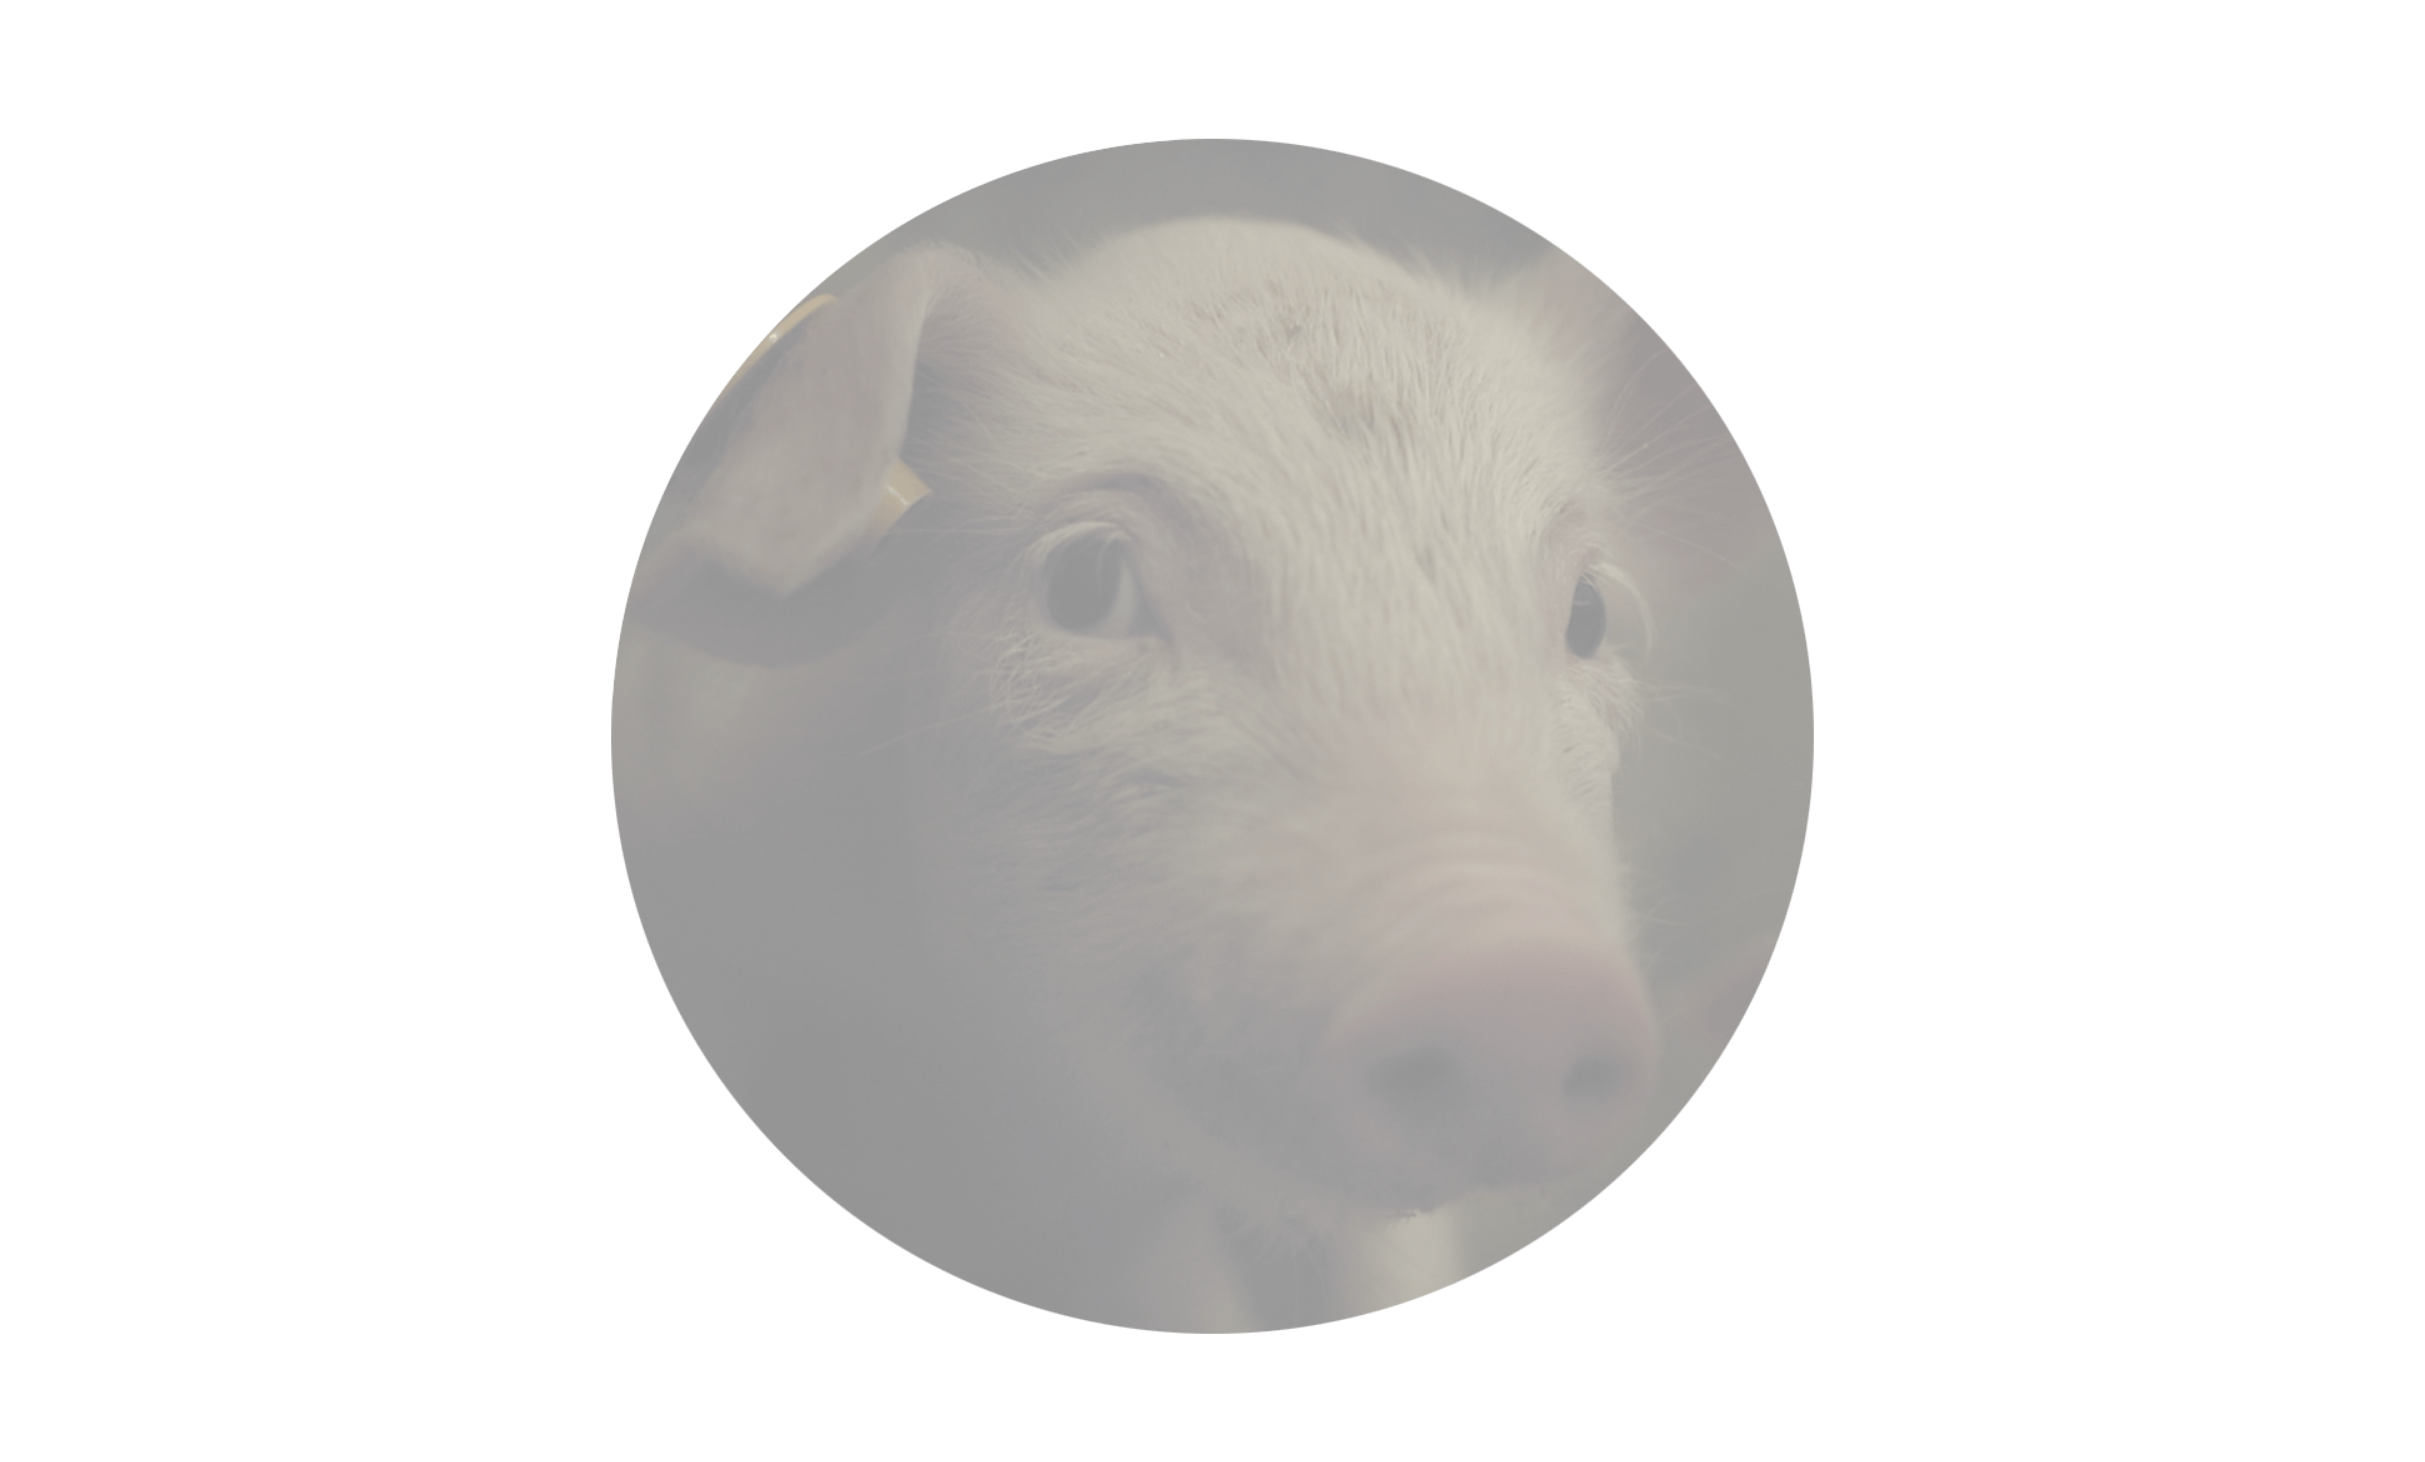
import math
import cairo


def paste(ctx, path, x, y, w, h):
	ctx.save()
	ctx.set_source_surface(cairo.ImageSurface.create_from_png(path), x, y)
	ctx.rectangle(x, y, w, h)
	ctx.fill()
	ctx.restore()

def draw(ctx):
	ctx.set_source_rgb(1, 1, 1)
	ctx.paint()
	paste(ctx, 'media/1.png', 611, 138, 1203, 1196)


surface = cairo.ImageSurface(cairo.FORMAT_RGB24, 2425, 1462)
ctx = cairo.Context(surface)
options = cairo.FontOptions()
options.set_hint_metrics(cairo.HINT_METRICS_OFF)
options.set_hint_style(cairo.HINT_STYLE_NONE)
ctx.set_font_options(options)
ctx.set_miter_limit(4)
draw(ctx)
surface.write_to_png('image.png')
